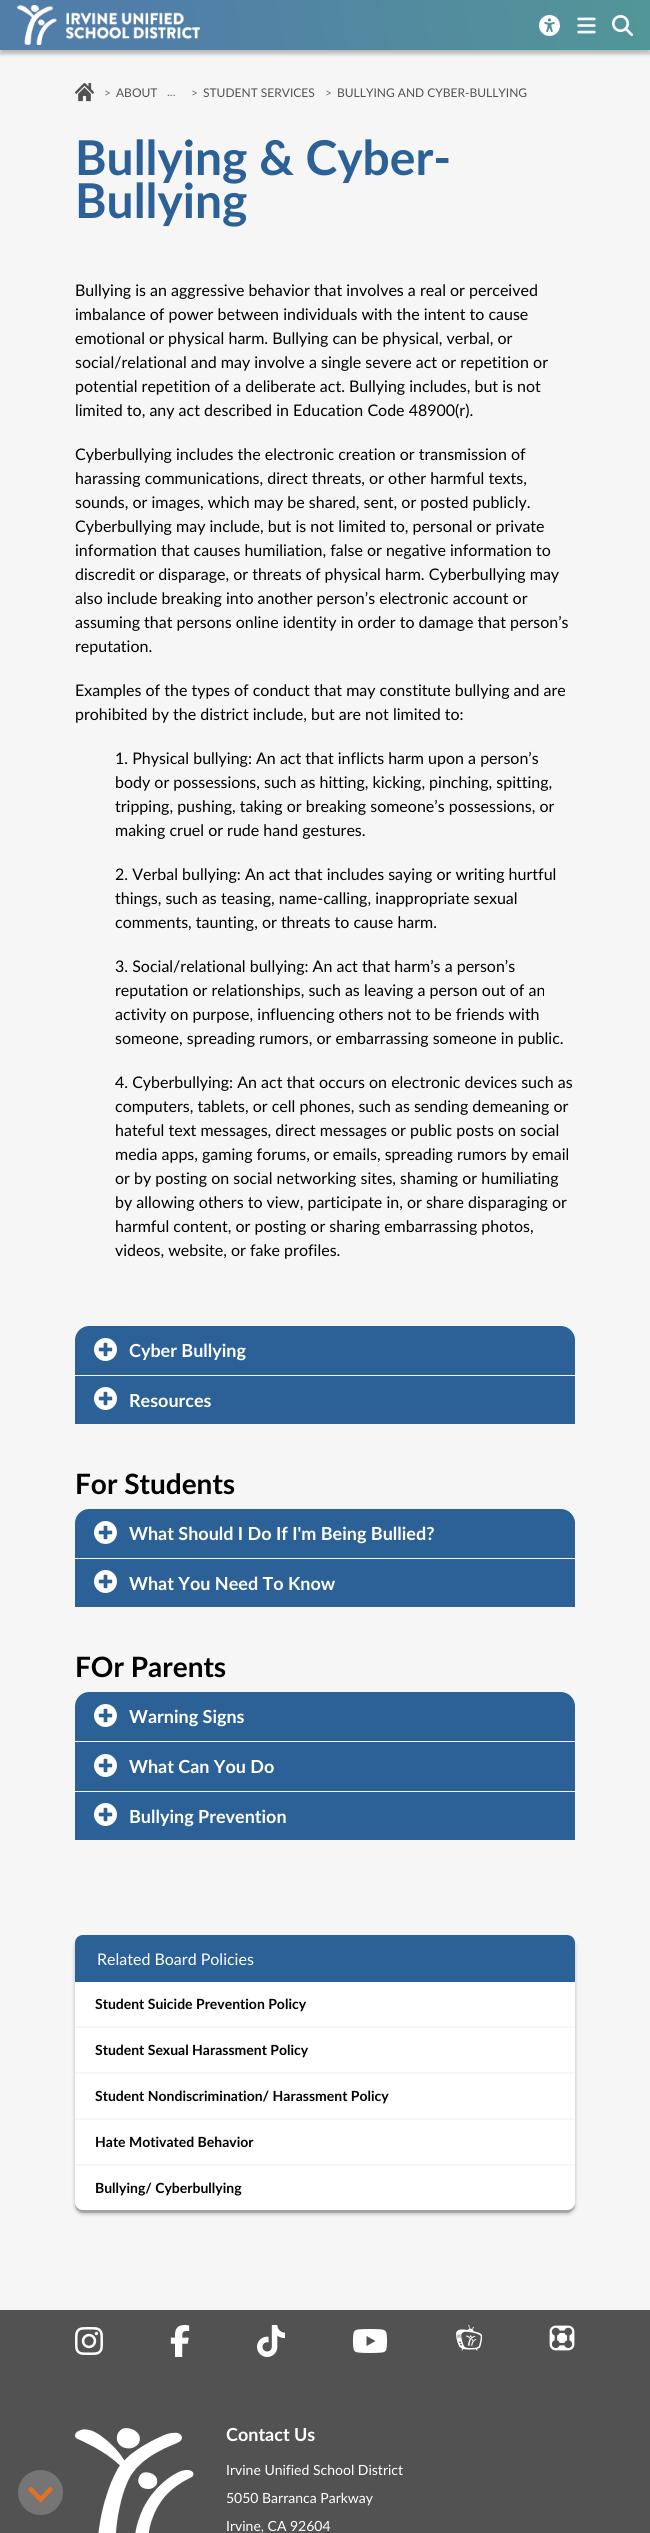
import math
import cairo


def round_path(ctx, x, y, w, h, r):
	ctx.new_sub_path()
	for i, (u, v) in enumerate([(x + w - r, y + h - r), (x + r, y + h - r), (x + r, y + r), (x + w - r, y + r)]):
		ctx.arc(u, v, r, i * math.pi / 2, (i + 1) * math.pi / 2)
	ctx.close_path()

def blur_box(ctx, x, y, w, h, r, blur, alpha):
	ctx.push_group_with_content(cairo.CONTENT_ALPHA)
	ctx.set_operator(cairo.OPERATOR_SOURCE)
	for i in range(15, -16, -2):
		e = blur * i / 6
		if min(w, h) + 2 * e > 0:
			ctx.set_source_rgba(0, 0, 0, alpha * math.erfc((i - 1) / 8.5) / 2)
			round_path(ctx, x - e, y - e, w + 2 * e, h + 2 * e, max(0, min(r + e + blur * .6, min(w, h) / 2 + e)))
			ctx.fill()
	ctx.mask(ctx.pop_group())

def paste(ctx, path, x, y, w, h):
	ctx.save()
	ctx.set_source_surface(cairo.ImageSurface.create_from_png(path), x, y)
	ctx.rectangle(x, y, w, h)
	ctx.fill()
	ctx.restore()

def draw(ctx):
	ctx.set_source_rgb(0.961, 0.961, 0.961)
	ctx.paint()
	ctx.set_source_rgb(0, 0, 0)
	blur_box(ctx, 0, 4, 650, 50, 0, 2, 0.25)
	gradient = cairo.LinearGradient(6.3, 84, 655, -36)
	gradient.add_color_stop_rgba(0.19, 0.318, 0.49, 0.663, 1)
	gradient.add_color_stop_rgba(1, 0.322, 0.592, 0.592, 1)
	ctx.set_source(gradient)
	ctx.rectangle(0, 0, 650, 50)
	ctx.fill()
	paste(ctx, 'media/1.png', 17, 5, 183, 40)
	paste(ctx, 'media/2.png', 539, 15, 21, 21)
	paste(ctx, 'media/3.png', 577, 17, 19, 17)
	paste(ctx, 'media/4.png', 612, 15, 21, 21)
	paste(ctx, 'media/5.png', 75, 83, 19, 19)
	ctx.select_font_face('Lato')
	ctx.set_font_size(12)
	ctx.set_source_rgb(0.424, 0.459, 0.49)
	ctx.move_to(104, 97)
	ctx.show_text('>')
	ctx.set_source_rgb(0.318, 0.322, 0.318)
	ctx.move_to(116, 97)
	ctx.show_text('ABOUT')
	ctx.set_source_rgb(0.424, 0.459, 0.49)
	ctx.move_to(167, 96)
	ctx.show_text('...')
	ctx.move_to(191, 97)
	ctx.show_text('>')
	ctx.set_source_rgb(0.318, 0.322, 0.318)
	ctx.move_to(203, 97)
	ctx.show_text('STUDENT SERVICES')
	ctx.set_source_rgb(0.424, 0.459, 0.49)
	ctx.move_to(325, 97)
	ctx.show_text('>')
	ctx.set_source_rgb(0.318, 0.322, 0.318)
	ctx.move_to(337, 97)
	ctx.show_text('BULLYING AND CYBER-BULLYING')
	ctx.select_font_face('Lato', cairo.FONT_SLANT_NORMAL, cairo.FONT_WEIGHT_BOLD)
	ctx.set_font_size(48)
	ctx.set_source_rgb(0.169, 0.38, 0.588)
	ctx.move_to(75, 175)
	ctx.show_text('Bullying & Cyber-')
	ctx.move_to(75, 218)
	ctx.show_text('Bullying')
	ctx.select_font_face('Lato')
	ctx.set_font_size(16)
	ctx.set_source_rgb(0, 0, 0)
	for x, y, s in [
		(75, 296, 'Bullying is an aggressive behavior that involves a real or perceived'),
		(75, 320, 'imbalance of power between individuals with the intent to cause'),
		(75, 344, 'emotional or physical harm. Bullying can be physical, verbal, or'),
		(75, 368, 'social/relational and may involve a single severe act or repetition or'),
		(75, 392, 'potential repetition of a deliberate act. Bullying includes, but is not'),
		(75, 416, 'limited to, any act described in Education Code 48900(r).'),
		(75, 460, 'Cyberbullying includes the electronic creation or transmission of'),
		(75, 484, 'harassing communications, direct threats, or other harmful texts,'),
		(75, 508, 'sounds, or images, which may be shared, sent, or posted publicly.'),
		(75, 532, 'Cyberbullying may include, but is not limited to, personal or private'),
		(75, 556, 'information that causes humiliation, false or negative information to'),
		(75, 580, 'discredit or disparage, or threats of physical harm. Cyberbullying may'),
		(75, 604, 'also include breaking into another person’s electronic account or'),
		(75, 628, 'assuming that persons online identity in order to damage that person’s'),
		(75, 652, 'reputation.'),
		(75, 696, 'Examples of the types of conduct that may constitute bullying and are'),
		(75, 720, 'prohibited by the district include, but are not limited to:'),
		(115, 764, '1. Physical bullying: An act that inflicts harm upon a person’s'),
		(115, 788, 'body or possessions, such as hitting, kicking, pinching, spitting,'),
		(115, 812, 'tripping, pushing, taking or breaking someone’s possessions, or'),
		(115, 836, 'making cruel or rude hand gestures.'),
		(115, 880, '2. Verbal bullying: An act that includes saying or writing hurtful'),
		(115, 904, 'things, such as teasing, name-calling, inappropriate sexual'),
		(115, 928, 'comments, taunting, or threats to cause harm.'),
		(115, 972, '3. Social/relational bullying: An act that harm’s a person’s'),
		(115, 996, 'reputation or relationships, such as leaving a person out of an'),
		(115, 1020, 'activity on purpose, influencing others not to be friends with'),
		(115, 1044, 'someone, spreading rumors, or embarrassing someone in public.'),
		(115, 1088, '4. Cyberbullying: An act that occurs on electronic devices such as'),
		(115, 1112, 'computers, tablets, or cell phones, such as sending demeaning or'),
		(115, 1136, 'hateful text messages, direct messages or public posts on social'),
		(115, 1160, 'media apps, gaming forums, or emails, spreading rumors by email'),
		(115, 1184, 'or by posting on social networking sites, shaming or humiliating'),
		(115, 1208, 'by allowing others to view, participate in, or share disparaging or'),
		(115, 1232, 'harmful content, or posting or sharing embarrassing photos,'),
		(115, 1256, 'videos, website, or fake profiles.'),
	]:
		ctx.move_to(x, y)
		ctx.show_text(s)
	ctx.set_source_rgb(0.169, 0.38, 0.588)
	ctx.new_path()
	ctx.move_to(89, 1326)
	ctx.line_to(561, 1326)
	ctx.curve_to(568.5, 1326, 575, 1332.5, 575, 1340)
	ctx.line_to(575, 1375)
	ctx.line_to(75, 1375)
	ctx.line_to(75, 1340)
	ctx.curve_to(75, 1332.5, 81.5, 1326, 89, 1326)
	ctx.close_path()
	ctx.fill()
	paste(ctx, 'media/6.png', 94, 1338, 23, 23)
	ctx.select_font_face('Lato', cairo.FONT_SLANT_NORMAL, cairo.FONT_WEIGHT_BOLD)
	ctx.set_font_size(18)
	ctx.set_source_rgb(1, 1, 1)
	ctx.move_to(129, 1357)
	ctx.show_text('Cyber Bullying')
	ctx.set_source_rgb(0.169, 0.38, 0.588)
	ctx.rectangle(75, 1376, 500, 48)
	ctx.fill()
	paste(ctx, 'media/6.png', 94, 1387, 23, 23)
	ctx.set_source_rgb(1, 1, 1)
	ctx.move_to(129, 1407)
	ctx.show_text('Resources')
	ctx.set_font_size(28)
	ctx.set_source_rgb(0, 0, 0)
	ctx.move_to(75, 1494)
	ctx.show_text('For Students')
	ctx.set_source_rgb(0.169, 0.38, 0.588)
	ctx.new_path()
	ctx.move_to(89, 1509)
	ctx.line_to(561, 1509)
	ctx.curve_to(568.5, 1509, 575, 1515.5, 575, 1523)
	ctx.line_to(575, 1558)
	ctx.line_to(75, 1558)
	ctx.line_to(75, 1523)
	ctx.curve_to(75, 1515.5, 81.5, 1509, 89, 1509)
	ctx.close_path()
	ctx.fill()
	paste(ctx, 'media/6.png', 94, 1521, 23, 23)
	ctx.set_font_size(18)
	ctx.set_source_rgb(1, 1, 1)
	ctx.move_to(129, 1540)
	ctx.show_text('What Should I Do If I\'m Being Bullied?')
	ctx.set_source_rgb(0.169, 0.38, 0.588)
	ctx.rectangle(75, 1559, 500, 48)
	ctx.fill()
	paste(ctx, 'media/6.png', 94, 1570, 23, 23)
	ctx.set_source_rgb(1, 1, 1)
	ctx.move_to(129, 1590)
	ctx.show_text('What You Need To Know')
	ctx.set_font_size(28)
	ctx.set_source_rgb(0, 0, 0)
	ctx.move_to(75, 1677)
	ctx.show_text('FOr Parents')
	ctx.set_source_rgb(0.169, 0.38, 0.588)
	ctx.new_path()
	ctx.move_to(89, 1692)
	ctx.line_to(561, 1692)
	ctx.curve_to(568.5, 1692, 575, 1698.5, 575, 1706)
	ctx.line_to(575, 1741)
	ctx.line_to(75, 1741)
	ctx.line_to(75, 1706)
	ctx.curve_to(75, 1698.5, 81.5, 1692, 89, 1692)
	ctx.close_path()
	ctx.fill()
	paste(ctx, 'media/6.png', 94, 1704, 23, 23)
	ctx.set_font_size(18)
	ctx.set_source_rgb(1, 1, 1)
	ctx.move_to(129, 1723)
	ctx.show_text('Warning Signs')
	ctx.set_source_rgb(0.169, 0.38, 0.588)
	ctx.rectangle(75, 1742, 500, 49)
	ctx.fill()
	paste(ctx, 'media/6.png', 94, 1754, 23, 23)
	ctx.set_source_rgb(1, 1, 1)
	ctx.move_to(129, 1773)
	ctx.show_text('What Can You Do')
	ctx.set_source_rgb(0.169, 0.38, 0.588)
	ctx.rectangle(75, 1792, 500, 48)
	ctx.fill()
	paste(ctx, 'media/6.png', 94, 1803, 23, 23)
	ctx.set_source_rgb(1, 1, 1)
	ctx.move_to(129, 1823)
	ctx.show_text('Bullying Prevention')
	ctx.set_source_rgb(0.827, 0.827, 0.827)
	ctx.new_path()
	ctx.move_to(75, 2202)
	ctx.line_to(75, 2205)
	ctx.curve_to(75, 2209, 79, 2213, 83, 2213)
	ctx.line_to(567, 2213)
	ctx.curve_to(571, 2213, 575, 2209, 575, 2205)
	ctx.line_to(575, 2202)
	ctx.curve_to(575, 2206, 571, 2210, 567, 2210)
	ctx.line_to(83, 2210)
	ctx.curve_to(79, 2210, 75, 2206, 75, 2202)
	ctx.close_path()
	ctx.fill()
	ctx.set_source_rgb(0, 0, 0)
	blur_box(ctx, 75, 1939, 500, 275, 8, 2, 0.25)
	ctx.set_source_rgb(0.169, 0.38, 0.588)
	ctx.new_path()
	ctx.move_to(83, 1935)
	ctx.line_to(567, 1935)
	ctx.curve_to(571.5, 1935, 575, 1938.5, 575, 1943)
	ctx.line_to(575, 1982)
	ctx.line_to(75, 1982)
	ctx.line_to(75, 1943)
	ctx.curve_to(75, 1938.5, 78.5, 1935, 83, 1935)
	ctx.close_path()
	ctx.fill()
	ctx.select_font_face('Lato')
	ctx.set_font_size(16)
	ctx.set_source_rgb(1, 1, 1)
	ctx.move_to(97, 1965)
	ctx.show_text('Related Board Policies')
	ctx.new_path()
	ctx.move_to(75, 1982)
	ctx.line_to(575, 1982)
	ctx.line_to(575, 2202)
	ctx.curve_to(575, 2206.5, 571.5, 2210, 567, 2210)
	ctx.line_to(83, 2210)
	ctx.curve_to(78.5, 2210, 75, 2206.5, 75, 2202)
	ctx.close_path()
	ctx.fill()
	ctx.set_source_rgb(0.961, 0.961, 0.961)
	ctx.rectangle(75, 2026, 500, 2)
	ctx.fill()
	ctx.select_font_face('Lato', cairo.FONT_SLANT_NORMAL, cairo.FONT_WEIGHT_BOLD)
	ctx.set_font_size(14)
	ctx.set_source_rgb(0, 0, 0)
	ctx.move_to(95, 2009)
	ctx.show_text('Student Suicide Prevention Policy')
	ctx.set_source_rgb(0.961, 0.961, 0.961)
	ctx.rectangle(75, 2072, 500, 2)
	ctx.fill()
	ctx.set_source_rgb(0, 0, 0)
	ctx.move_to(95, 2055)
	ctx.show_text('Student Sexual Harassment Policy')
	ctx.set_source_rgb(0.961, 0.961, 0.961)
	ctx.rectangle(75, 2118, 500, 2)
	ctx.fill()
	ctx.set_source_rgb(0, 0, 0)
	ctx.move_to(95, 2101)
	ctx.show_text('Student Nondiscrimination/ Harassment Policy')
	ctx.set_source_rgb(0.961, 0.961, 0.961)
	ctx.rectangle(75, 2164, 500, 2)
	ctx.fill()
	ctx.set_source_rgb(0, 0, 0)
	ctx.move_to(95, 2147)
	ctx.show_text('Hate Motivated Behavior')
	ctx.move_to(95, 2193)
	ctx.show_text('Bullying/ Cyberbullying')
	ctx.set_source_rgb(0.318, 0.322, 0.318)
	ctx.rectangle(0, 2310, 650, 223)
	ctx.fill()
	paste(ctx, 'media/7.png', 75, 2327, 28, 28)
	paste(ctx, 'media/8.png', 170, 2325, 20, 32)
	paste(ctx, 'media/9.png', 257, 2325, 28, 32)
	paste(ctx, 'media/10.png', 352, 2329, 36, 24)
	paste(ctx, 'media/11.png', 456, 2325, 26, 26)
	paste(ctx, 'media/12.png', 549, 2325, 26, 26)
	ctx.set_source_rgb(0.455, 0.459, 0.455)
	ctx.arc(40.5, 2492.5, 22.5, 0, 2 * math.pi)
	ctx.fill()
	paste(ctx, 'media/13.png', 28, 2486, 25, 17)
	paste(ctx, 'media/14.png', 75, 2428, 119, 105)
	ctx.set_font_size(18)
	ctx.set_source_rgb(1, 1, 1)
	ctx.move_to(226, 2441)
	ctx.show_text('Contact Us')
	ctx.select_font_face('Lato')
	ctx.set_font_size(14)
	for x, y, s in [
		(226, 2475, 'Irvine Unified School District'),
		(226, 2503, '5050 Barranca Parkway'),
		(226, 2531, 'Irvine, CA 92604'),
	]:
		ctx.move_to(x, y)
		ctx.show_text(s)


surface = cairo.ImageSurface(cairo.FORMAT_RGB24, 650, 2533)
ctx = cairo.Context(surface)
options = cairo.FontOptions()
options.set_hint_metrics(cairo.HINT_METRICS_OFF)
options.set_hint_style(cairo.HINT_STYLE_NONE)
ctx.set_font_options(options)
ctx.set_miter_limit(4)
draw(ctx)
surface.write_to_png('image.png')
